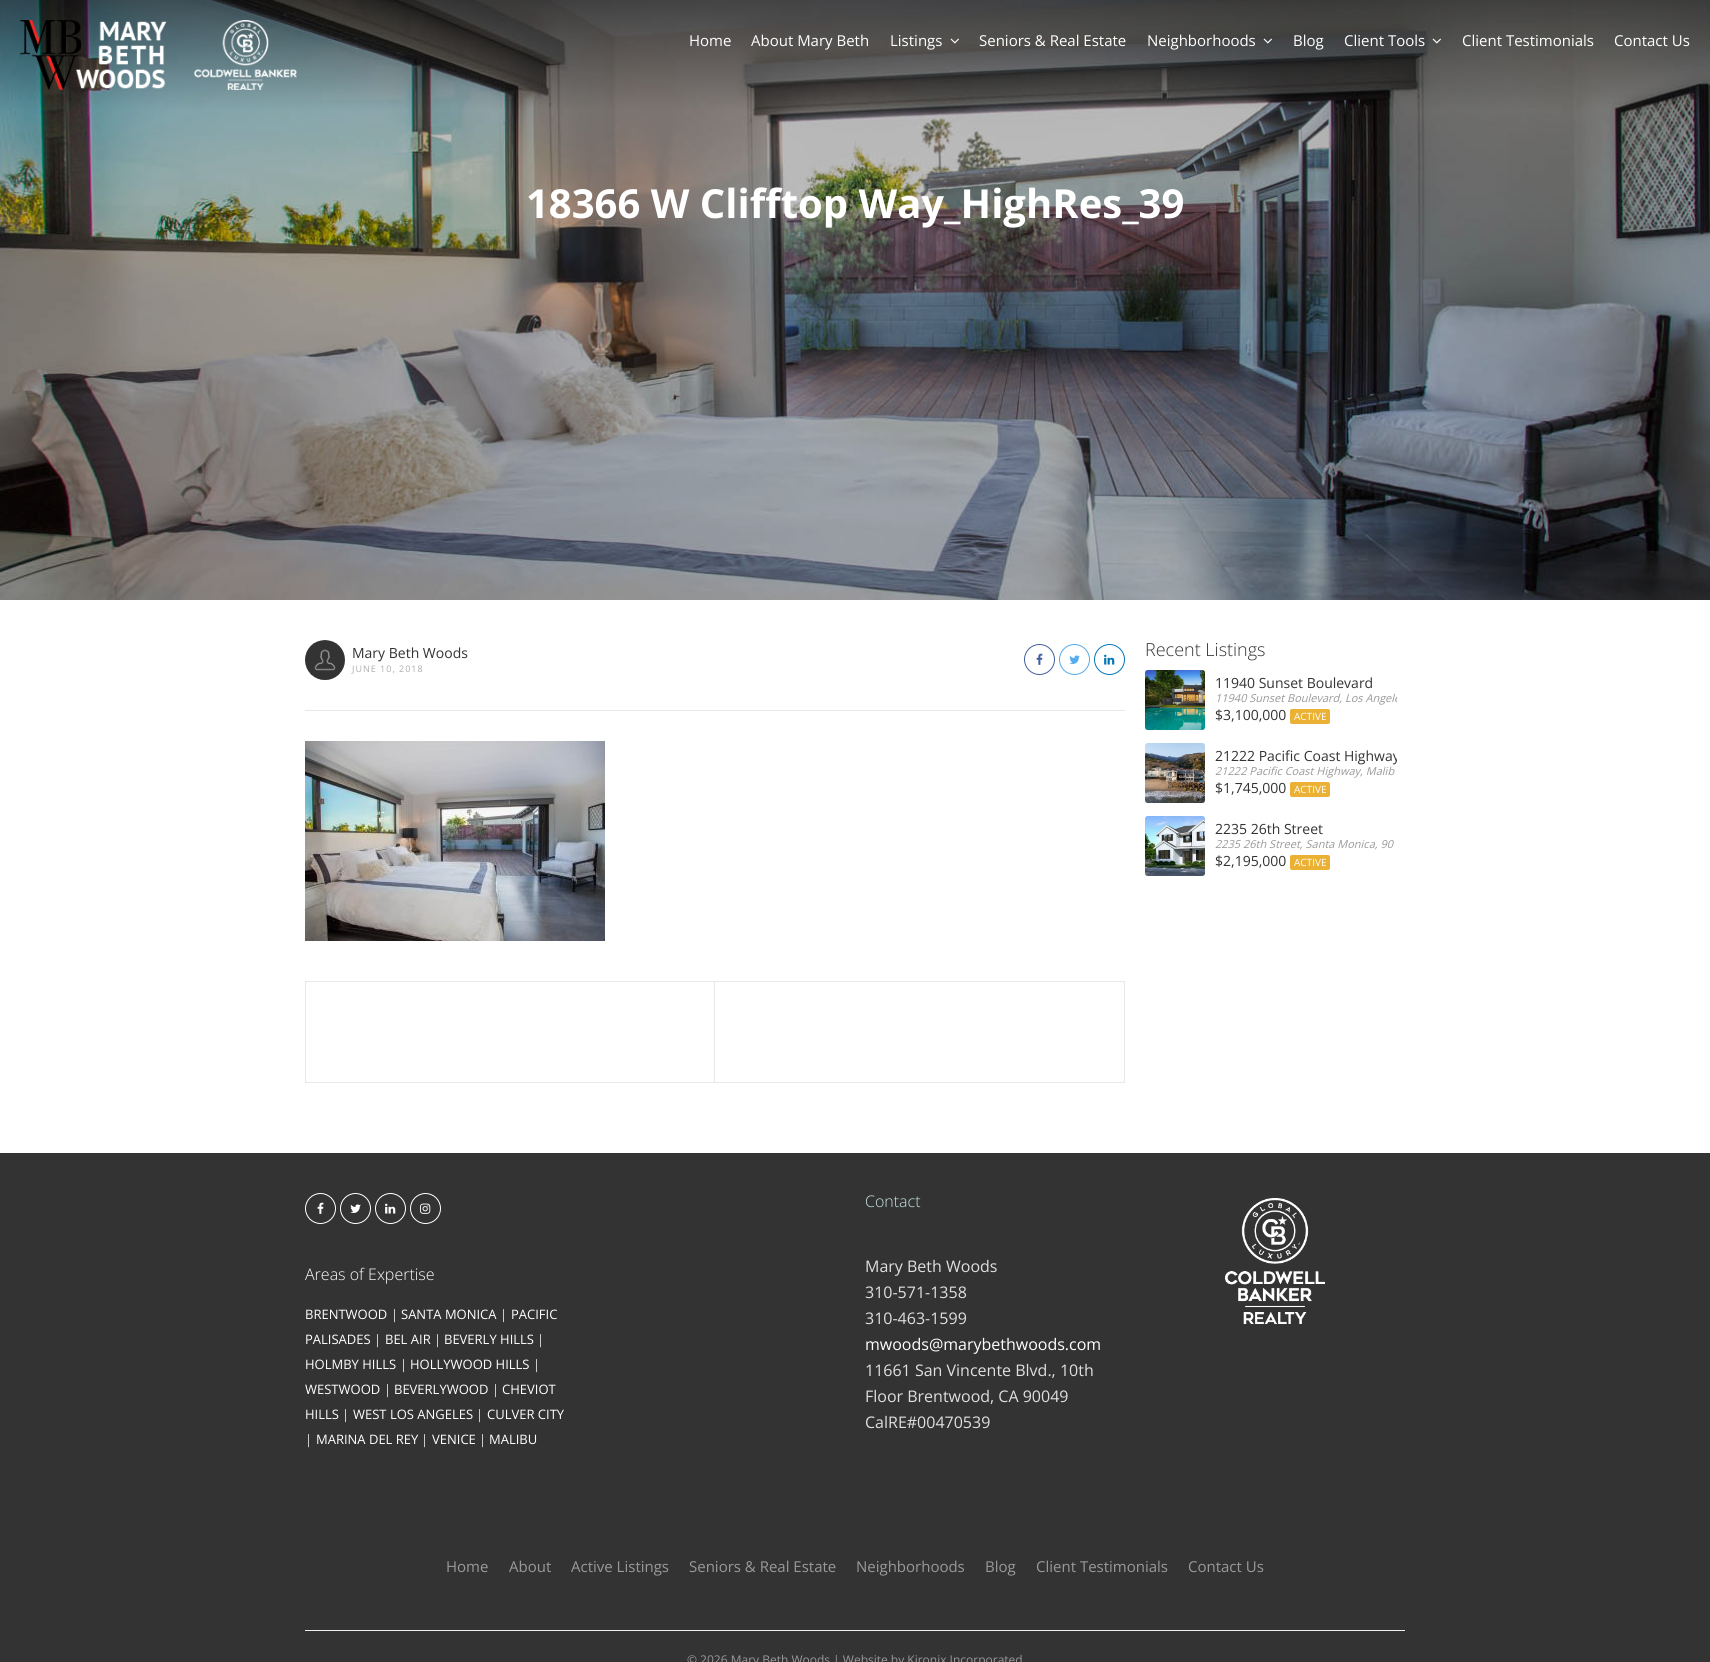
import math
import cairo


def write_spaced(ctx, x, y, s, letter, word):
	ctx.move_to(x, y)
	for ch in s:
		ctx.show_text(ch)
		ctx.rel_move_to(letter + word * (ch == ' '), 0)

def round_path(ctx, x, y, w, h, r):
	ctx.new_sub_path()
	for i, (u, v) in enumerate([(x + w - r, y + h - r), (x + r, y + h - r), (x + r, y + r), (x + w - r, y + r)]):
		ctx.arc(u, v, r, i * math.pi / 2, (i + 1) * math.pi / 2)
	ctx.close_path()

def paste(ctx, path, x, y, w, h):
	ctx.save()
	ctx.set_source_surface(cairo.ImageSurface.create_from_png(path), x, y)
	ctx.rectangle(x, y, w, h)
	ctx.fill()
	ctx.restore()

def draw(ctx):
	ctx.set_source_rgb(1, 1, 1)
	ctx.paint()
	paste(ctx, 'media/5.png', 0, 0, 1710, 600)
	paste(ctx, 'media/1.png', 20, 20, 277, 70)
	ctx.select_font_face('Open Sans')
	ctx.set_font_size(15)
	ctx.set_source_rgb(1, 1, 1)
	for x, y, s in [
		(689, 46, 'Home'),
		(751, 46, 'About Mary Beth'),
		(890, 46, 'Listings'),
	]:
		ctx.move_to(x, y)
		ctx.show_text(s)
	paste(ctx, 'media/2.png', 950, 38, 9, 6)
	ctx.move_to(979, 46)
	ctx.show_text('Seniors & Real Estate')
	ctx.move_to(1147, 46)
	ctx.show_text('Neighborhoods')
	paste(ctx, 'media/3.png', 1263, 38, 9, 6)
	ctx.move_to(1293, 46)
	ctx.show_text('Blog')
	ctx.move_to(1344, 46)
	ctx.show_text('Client Tools')
	paste(ctx, 'media/4.png', 1432, 38, 9, 6)
	ctx.move_to(1462, 46)
	ctx.show_text('Client Testimonials')
	ctx.move_to(1614, 46)
	ctx.show_text('Contact Us')
	ctx.select_font_face('Open Sans', cairo.FONT_SLANT_NORMAL, cairo.FONT_WEIGHT_BOLD)
	ctx.set_font_size(40)
	ctx.move_to(526, 218)
	ctx.show_text('18366 W Clifftop Way_HighRes_39')
	ctx.set_source_rgb(0.91, 0.91, 0.91)
	ctx.rectangle(305, 710, 820, 1)
	ctx.fill()
	paste(ctx, 'media/6.png', 305, 640, 40, 40)
	ctx.select_font_face('Open Sans')
	ctx.set_font_size(14)
	ctx.set_source_rgb(0.2, 0.2, 0.2)
	ctx.move_to(352, 658)
	ctx.show_text('Mary Beth Woods')
	ctx.set_font_size(9)
	ctx.set_source_rgb(0.678, 0.678, 0.678)
	write_spaced(ctx, 352, 672, 'JUNE 10, 2018', 1, 0)
	ctx.new_path()
	ctx.arc(1039.5, 659.5, 15, 0, 2 * math.pi)
	ctx.set_source_rgb(0.263, 0.376, 0.612)
	ctx.set_line_width(1)
	ctx.stroke()
	paste(ctx, 'media/7.png', 1036, 653, 7, 12)
	ctx.arc(1074.5, 659.5, 15, 0, 2 * math.pi)
	ctx.set_source_rgb(0.333, 0.675, 0.933)
	ctx.stroke()
	paste(ctx, 'media/8.png', 1069, 655, 11, 9)
	ctx.arc(1109.5, 659.5, 15, 0, 2 * math.pi)
	ctx.set_source_rgb(0.004, 0.467, 0.71)
	ctx.stroke()
	paste(ctx, 'media/9.png', 1104, 654, 11, 11)
	paste(ctx, 'media/10.png', 305, 741, 300, 200)
	ctx.rectangle(305.5, 981.5, 819, 101)
	ctx.set_source_rgb(0.91, 0.91, 0.91)
	ctx.stroke()
	ctx.rectangle(714, 982, 1, 100)
	ctx.fill()
	ctx.select_font_face('Open Sans Light')
	ctx.set_font_size(18)
	ctx.set_source_rgb(0.2, 0.2, 0.2)
	ctx.move_to(1145, 656)
	ctx.show_text('Recent Listings')
	paste(ctx, 'media/11.png', 1145, 670, 60, 60)
	ctx.select_font_face('Open Sans')
	ctx.set_font_size(14)
	ctx.move_to(1215, 688)
	ctx.show_text('11940 Sunset Boulevard')
	ctx.save()
	ctx.rectangle(1215, 670, 182, 56)
	ctx.clip()
	ctx.select_font_face('Open Sans', cairo.FONT_SLANT_ITALIC)
	ctx.set_font_size(11)
	ctx.set_source_rgb(0.6, 0.6, 0.6)
	ctx.move_to(1215, 702)
	ctx.show_text('11940 Sunset Boulevard, Los Angele')
	ctx.restore()
	ctx.move_to(1215, 720)
	ctx.show_text('$3,100,000')
	ctx.set_source_rgb(0.918, 0.694, 0.204)
	round_path(ctx, 1290, 709, 40, 15, 2)
	ctx.fill()
	ctx.set_font_size(10)
	ctx.set_source_rgb(1, 1, 1)
	ctx.move_to(1294, 720)
	ctx.show_text('ACTIVE')
	paste(ctx, 'media/12.png', 1145, 743, 60, 60)
	ctx.save()
	ctx.rectangle(1215, 743, 182, 56)
	ctx.clip()
	ctx.set_font_size(14)
	ctx.set_source_rgb(0.2, 0.2, 0.2)
	ctx.move_to(1215, 761)
	ctx.show_text('21222 Pacific Coast Highway')
	ctx.restore()
	ctx.select_font_face('Open Sans', cairo.FONT_SLANT_ITALIC)
	ctx.set_font_size(11)
	ctx.set_source_rgb(0.6, 0.6, 0.6)
	ctx.move_to(1215, 775)
	ctx.show_text('21222 Pacific Coast Highway, Malib')
	ctx.select_font_face('Open Sans')
	ctx.set_font_size(14)
	ctx.set_source_rgb(0.2, 0.2, 0.2)
	ctx.move_to(1215, 793)
	ctx.show_text('$1,745,000')
	ctx.set_source_rgb(0.918, 0.694, 0.204)
	round_path(ctx, 1290, 782, 40, 15, 2)
	ctx.fill()
	ctx.set_font_size(10)
	ctx.set_source_rgb(1, 1, 1)
	ctx.move_to(1294, 793)
	ctx.show_text('ACTIVE')
	paste(ctx, 'media/13.png', 1145, 816, 60, 60)
	ctx.set_font_size(14)
	ctx.set_source_rgb(0.2, 0.2, 0.2)
	ctx.move_to(1215, 834)
	ctx.show_text('2235 26th Street')
	ctx.select_font_face('Open Sans', cairo.FONT_SLANT_ITALIC)
	ctx.set_font_size(11)
	ctx.set_source_rgb(0.6, 0.6, 0.6)
	ctx.move_to(1215, 848)
	ctx.show_text('2235 26th Street, Santa Monica, 90')
	ctx.select_font_face('Open Sans')
	ctx.set_font_size(14)
	ctx.set_source_rgb(0.2, 0.2, 0.2)
	ctx.move_to(1215, 866)
	ctx.show_text('$2,195,000')
	ctx.set_source_rgb(0.918, 0.694, 0.204)
	round_path(ctx, 1290, 855, 40, 15, 2)
	ctx.fill()
	ctx.set_font_size(10)
	ctx.set_source_rgb(1, 1, 1)
	ctx.move_to(1294, 866)
	ctx.show_text('ACTIVE')
	ctx.set_source_rgb(0.2, 0.2, 0.2)
	ctx.rectangle(0, 1153, 1710, 509)
	ctx.fill()
	ctx.arc(320.5, 1208.5, 15, 0, 2 * math.pi)
	ctx.set_source_rgb(1, 1, 1)
	ctx.stroke()
	paste(ctx, 'media/14.png', 317, 1202, 7, 12)
	ctx.arc(355.5, 1208.5, 15, 0, 2 * math.pi)
	ctx.stroke()
	paste(ctx, 'media/15.png', 350, 1204, 11, 9)
	ctx.arc(390.5, 1208.5, 15, 0, 2 * math.pi)
	ctx.stroke()
	paste(ctx, 'media/16.png', 385, 1203, 11, 11)
	ctx.arc(425.5, 1208.5, 15, 0, 2 * math.pi)
	ctx.stroke()
	paste(ctx, 'media/17.png', 420, 1203, 11, 11)
	ctx.select_font_face('Open Sans Light')
	ctx.set_font_size(16)
	ctx.move_to(305, 1280)
	ctx.show_text('Areas of Expertise')
	ctx.select_font_face('Open Sans')
	ctx.set_font_size(13)
	ctx.move_to(305, 1319)
	ctx.show_text('BRENTWOOD')
	ctx.set_source_rgb(0.875, 0.875, 0.875)
	ctx.move_to(391, 1319)
	ctx.show_text('|')
	ctx.set_source_rgb(1, 1, 1)
	ctx.move_to(401, 1319)
	ctx.show_text('SANTA MONICA')
	ctx.set_source_rgb(0.875, 0.875, 0.875)
	ctx.move_to(500, 1319)
	ctx.show_text('|')
	ctx.set_source_rgb(1, 1, 1)
	ctx.move_to(511, 1319)
	ctx.show_text('PACIFIC')
	ctx.move_to(305, 1344)
	ctx.show_text('PALISADES')
	ctx.set_source_rgb(0.875, 0.875, 0.875)
	ctx.move_to(374, 1344)
	ctx.show_text('|')
	ctx.set_source_rgb(1, 1, 1)
	ctx.move_to(385, 1344)
	ctx.show_text('BEL AIR')
	ctx.set_source_rgb(0.875, 0.875, 0.875)
	ctx.move_to(434, 1344)
	ctx.show_text('|')
	ctx.set_source_rgb(1, 1, 1)
	ctx.move_to(444, 1344)
	ctx.show_text('BEVERLY HILLS')
	ctx.set_source_rgb(0.875, 0.875, 0.875)
	ctx.move_to(537, 1344)
	ctx.show_text('|')
	ctx.set_source_rgb(1, 1, 1)
	ctx.move_to(305, 1369)
	ctx.show_text('HOLMBY HILLS')
	ctx.set_source_rgb(0.875, 0.875, 0.875)
	ctx.move_to(400, 1369)
	ctx.show_text('|')
	ctx.set_source_rgb(1, 1, 1)
	ctx.move_to(410, 1369)
	ctx.show_text('HOLLYWOOD HILLS')
	ctx.set_source_rgb(0.875, 0.875, 0.875)
	ctx.move_to(533, 1369)
	ctx.show_text('|')
	ctx.set_source_rgb(1, 1, 1)
	ctx.move_to(305, 1394)
	ctx.show_text('WESTWOOD')
	ctx.set_source_rgb(0.875, 0.875, 0.875)
	ctx.move_to(384, 1394)
	ctx.show_text('|')
	ctx.set_source_rgb(1, 1, 1)
	ctx.move_to(394, 1394)
	ctx.show_text('BEVERLYWOOD')
	ctx.set_source_rgb(0.875, 0.875, 0.875)
	ctx.move_to(492, 1394)
	ctx.show_text('|')
	ctx.set_source_rgb(1, 1, 1)
	ctx.move_to(502, 1394)
	ctx.show_text('CHEVIOT')
	ctx.move_to(305, 1419)
	ctx.show_text('HILLS')
	ctx.set_source_rgb(0.875, 0.875, 0.875)
	ctx.move_to(342, 1419)
	ctx.show_text('|')
	ctx.set_source_rgb(1, 1, 1)
	ctx.move_to(353, 1419)
	ctx.show_text('WEST LOS ANGELES')
	ctx.set_source_rgb(0.875, 0.875, 0.875)
	ctx.move_to(476, 1419)
	ctx.show_text('|')
	ctx.set_source_rgb(1, 1, 1)
	ctx.move_to(487, 1419)
	ctx.show_text('CULVER CITY')
	ctx.set_source_rgb(0.875, 0.875, 0.875)
	ctx.move_to(305, 1444)
	ctx.show_text('|')
	ctx.set_source_rgb(1, 1, 1)
	ctx.move_to(316, 1444)
	ctx.show_text('MARINA DEL REY')
	ctx.set_source_rgb(0.875, 0.875, 0.875)
	ctx.move_to(421, 1444)
	ctx.show_text('|')
	ctx.set_source_rgb(1, 1, 1)
	ctx.move_to(432, 1444)
	ctx.show_text('VENICE')
	ctx.set_source_rgb(0.875, 0.875, 0.875)
	ctx.move_to(479, 1444)
	ctx.show_text('|')
	ctx.set_source_rgb(1, 1, 1)
	ctx.move_to(489, 1444)
	ctx.show_text('MALIBU')
	ctx.select_font_face('Open Sans Light')
	ctx.set_font_size(16)
	ctx.set_source_rgb(0.776, 0.894, 0.89)
	ctx.move_to(865, 1207)
	ctx.show_text('Contact')
	ctx.select_font_face('Open Sans')
	ctx.set_source_rgb(0.875, 0.875, 0.875)
	for x, y, s in [
		(865, 1272, 'Mary Beth Woods'),
		(865, 1298, '310-571-1358'),
		(865, 1324, '310-463-1599'),
	]:
		ctx.move_to(x, y)
		ctx.show_text(s)
	ctx.set_source_rgb(1, 1, 1)
	ctx.move_to(865, 1350)
	ctx.show_text('mwoods@marybethwoods.com')
	ctx.set_source_rgb(0.875, 0.875, 0.875)
	for x, y, s in [
		(865, 1376, '11661 San Vincente Blvd., 10th'),
		(865, 1402, 'Floor Brentwood, CA 90049'),
		(865, 1428, 'CalRE#00470539'),
	]:
		ctx.move_to(x, y)
		ctx.show_text(s)
	paste(ctx, 'media/18.png', 1225, 1198, 100, 126)
	ctx.set_font_size(15)
	ctx.set_source_rgb(0.6, 0.6, 0.6)
	for x, y, s in [
		(446, 1572, 'Home'),
		(509, 1572, 'About'),
		(571, 1572, 'Active Listings'),
		(689, 1572, 'Seniors & Real Estate'),
		(856, 1572, 'Neighborhoods'),
		(985, 1572, 'Blog'),
		(1036, 1572, 'Client Testimonials'),
		(1188, 1572, 'Contact Us'),
	]:
		ctx.move_to(x, y)
		ctx.show_text(s)
	ctx.set_source_rgb(0.933, 0.933, 0.933)
	ctx.rectangle(305, 1630, 1100, 1)
	ctx.fill()
	ctx.set_font_size(12)
	ctx.set_source_rgb(0.6, 0.6, 0.6)
	ctx.move_to(687, 1664)
	ctx.show_text('© 2026 Mary Beth Woods | Website by Kironix Incorporated')


surface = cairo.ImageSurface(cairo.FORMAT_RGB24, 1710, 1662)
ctx = cairo.Context(surface)
options = cairo.FontOptions()
options.set_hint_metrics(cairo.HINT_METRICS_OFF)
options.set_hint_style(cairo.HINT_STYLE_NONE)
ctx.set_font_options(options)
ctx.set_miter_limit(4)
draw(ctx)
surface.write_to_png('image.png')
